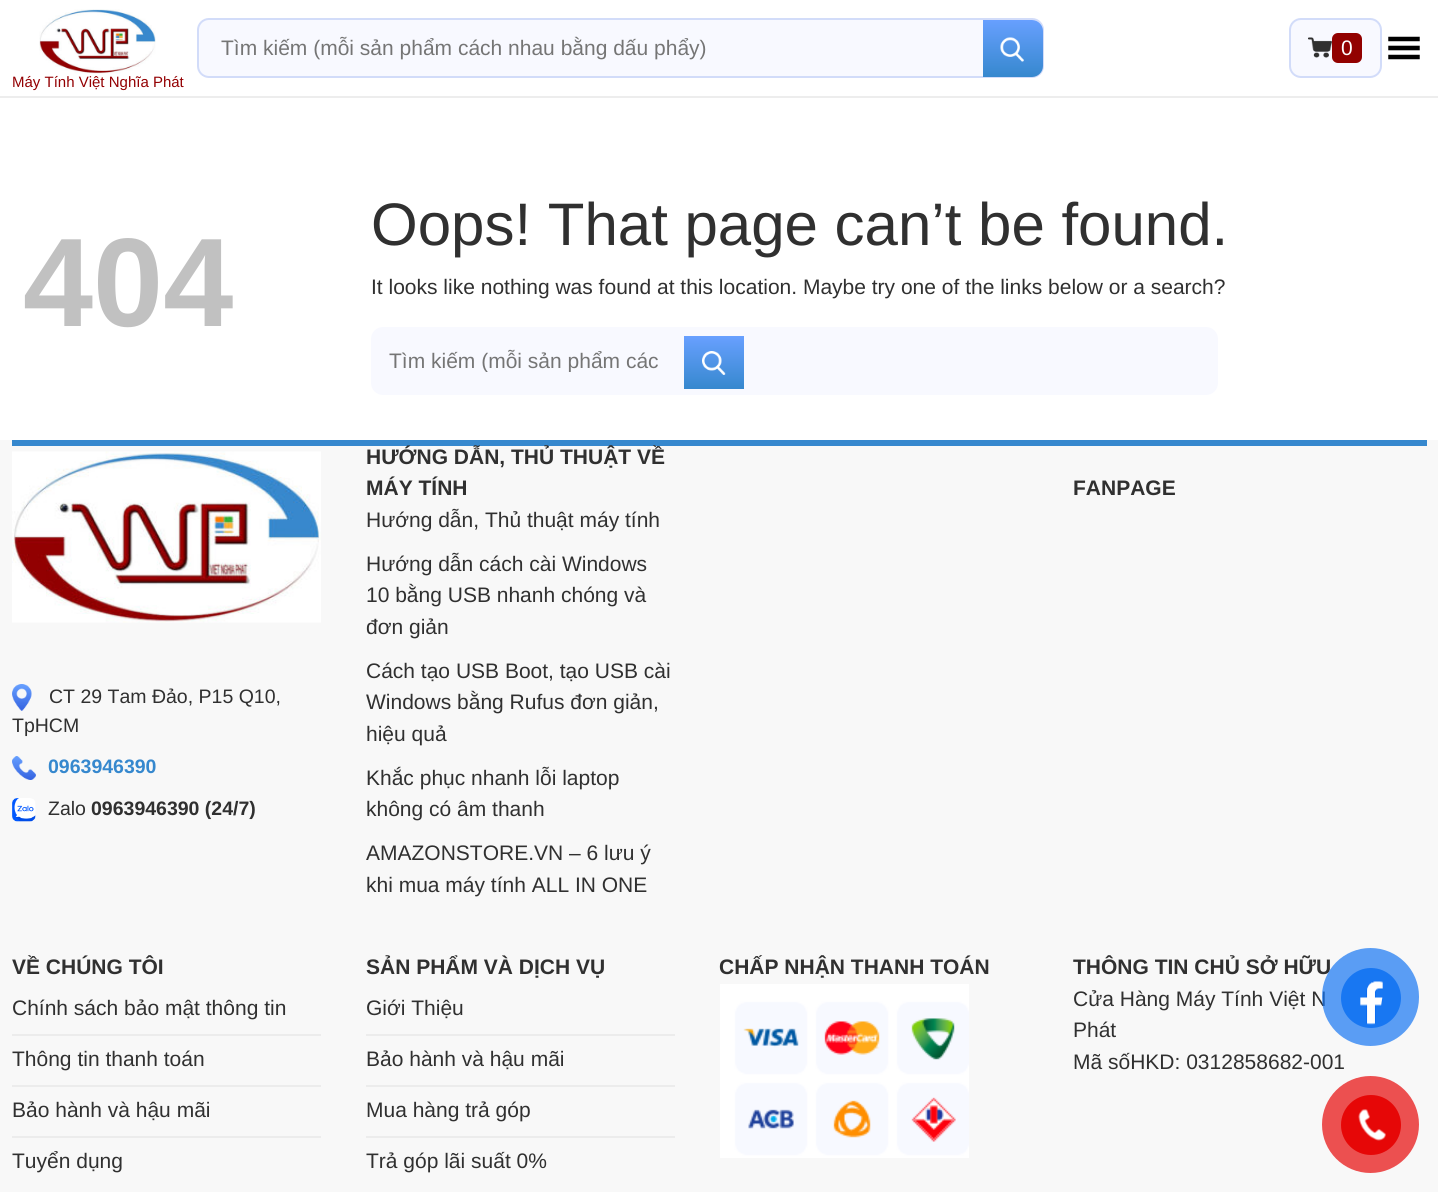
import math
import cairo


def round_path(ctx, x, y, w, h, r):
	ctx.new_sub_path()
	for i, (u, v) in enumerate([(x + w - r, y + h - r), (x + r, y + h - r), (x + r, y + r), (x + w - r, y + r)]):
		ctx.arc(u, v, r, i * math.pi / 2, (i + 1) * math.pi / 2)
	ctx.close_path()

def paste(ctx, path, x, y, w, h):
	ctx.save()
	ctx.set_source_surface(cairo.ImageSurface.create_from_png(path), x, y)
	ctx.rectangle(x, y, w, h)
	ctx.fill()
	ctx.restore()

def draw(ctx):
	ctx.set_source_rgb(1, 1, 1)
	ctx.paint()
	ctx.set_source_rgb(0.929, 0.929, 0.929)
	ctx.rectangle(0, 96, 1438, 2)
	ctx.fill()
	ctx.set_source_rgb(0.969, 0.976, 1)
	round_path(ctx, 197, 18, 847, 60, 12)
	ctx.fill()
	round_path(ctx, 198, 19, 845, 58, 11)
	ctx.set_source_rgba(0.4, 0.537, 0.91, 0.26)
	ctx.stroke()
	ctx.select_font_face('Liberation Sans')
	ctx.set_font_size(21)
	ctx.set_source_rgb(0.459, 0.459, 0.459)
	ctx.move_to(221, 55)
	ctx.show_text('Tìm kiếm (mỗi sản phẩm cách nhau bằng dấu phẩy)')
	gradient = cairo.LinearGradient(1013, 19, 1013, 77)
	gradient.add_color_stop_rgba(0, 0.408, 0.627, 1, 1)
	gradient.add_color_stop_rgba(1, 0.212, 0.533, 0.808, 1)
	ctx.set_source(gradient)
	ctx.new_path()
	ctx.move_to(983, 20)
	ctx.line_to(1032, 20)
	ctx.curve_to(1038, 20, 1043, 25, 1043, 31)
	ctx.line_to(1043, 66)
	ctx.curve_to(1043, 72, 1038, 77, 1032, 77)
	ctx.line_to(983, 77)
	ctx.close_path()
	ctx.fill()
	paste(ctx, 'media/1.png', 1000, 37, 24, 25)
	ctx.set_source_rgb(0.969, 0.976, 1)
	round_path(ctx, 1289, 18, 93, 60, 12)
	ctx.fill()
	round_path(ctx, 1290, 19, 91, 58, 11)
	ctx.set_source_rgba(0.4, 0.537, 0.91, 0.26)
	ctx.stroke()
	paste(ctx, 'media/2.png', 1308, 37, 24, 21)
	ctx.set_source_rgb(0.573, 0.004, 0)
	round_path(ctx, 1332, 33, 30, 30, 6)
	ctx.fill()
	ctx.set_source_rgb(1, 1, 1)
	ctx.move_to(1341, 55)
	ctx.show_text('0')
	paste(ctx, 'media/3.png', 1388, 36, 32, 24)
	paste(ctx, 'media/4.png', 39, 9, 117, 65)
	ctx.set_font_size(15)
	ctx.set_source_rgb(0.576, 0, 0.008)
	ctx.move_to(12, 87)
	ctx.show_text('Máy Tính Việt Nghĩa Phát')
	ctx.select_font_face('Liberation Sans', cairo.FONT_SLANT_NORMAL, cairo.FONT_WEIGHT_BOLD)
	ctx.set_font_size(126)
	ctx.set_source_rgb(0.757, 0.757, 0.757)
	ctx.move_to(23, 326)
	ctx.show_text('404')
	ctx.select_font_face('Liberation Sans')
	ctx.set_font_size(60)
	ctx.set_source_rgb(0.188, 0.188, 0.188)
	ctx.move_to(371, 245)
	ctx.show_text('Oops! That page can’t be found.')
	ctx.set_font_size(21)
	ctx.move_to(371, 294)
	ctx.show_text('It looks like nothing was found at this location. Maybe try one of the links below or a search?')
	ctx.set_source_rgb(0.969, 0.976, 1)
	round_path(ctx, 371, 327, 847, 68, 12)
	ctx.fill()
	ctx.save()
	ctx.rectangle(389, 348, 271, 24)
	ctx.clip()
	ctx.set_source_rgb(0.459, 0.459, 0.459)
	ctx.move_to(389, 368)
	ctx.show_text('Tìm kiếm (mỗi sản phẩm các')
	ctx.restore()
	gradient = cairo.LinearGradient(714, 336, 714, 389)
	gradient.add_color_stop_rgba(0, 0.408, 0.627, 1, 1)
	gradient.add_color_stop_rgba(1, 0.212, 0.533, 0.808, 1)
	ctx.set_source(gradient)
	ctx.rectangle(684, 336, 60, 53)
	ctx.fill()
	paste(ctx, 'media/5.png', 702, 351, 24, 24)
	ctx.set_source_rgb(0.969, 0.969, 0.969)
	ctx.rectangle(0, 440, 1438, 752)
	ctx.fill()
	ctx.set_source_rgb(0.212, 0.533, 0.808)
	ctx.rectangle(12, 440, 1415, 6)
	ctx.fill()
	ctx.select_font_face('Liberation Sans', cairo.FONT_SLANT_NORMAL, cairo.FONT_WEIGHT_BOLD)
	ctx.set_source_rgb(0.188, 0.188, 0.188)
	ctx.move_to(366, 464)
	ctx.show_text('HƯỚNG DẪN, THỦ THUẬT VỀ')
	ctx.move_to(366, 495)
	ctx.show_text('MÁY TÍNH')
	ctx.select_font_face('Liberation Sans')
	for x, y, s in [
		(366, 527, 'Hướng dẫn, Thủ thuật máy tính'),
		(366, 571, 'Hướng dẫn cách cài Windows'),
		(366, 602, '10 bằng USB nhanh chóng và'),
		(366, 634, 'đơn giản'),
		(366, 678, 'Cách tạo USB Boot, tạo USB cài'),
		(366, 709, 'Windows bằng Rufus đơn giản,'),
		(366, 741, 'hiệu quả'),
		(366, 785, 'Khắc phục nhanh lỗi laptop'),
		(366, 816, 'không có âm thanh'),
		(366, 860, 'AMAZONSTORE.VN – 6 lưu ý'),
		(366, 892, 'khi mua máy tính ALL IN ONE'),
	]:
		ctx.move_to(x, y)
		ctx.show_text(s)
	ctx.select_font_face('Liberation Sans', cairo.FONT_SLANT_NORMAL, cairo.FONT_WEIGHT_BOLD)
	ctx.move_to(1073, 495)
	ctx.show_text('FANPAGE')
	paste(ctx, 'media/6.png', 12, 451, 309, 172)
	paste(ctx, 'media/7.png', 12, 684, 20, 27)
	ctx.select_font_face('Liberation Sans')
	ctx.set_font_size(19.5)
	ctx.move_to(49, 703)
	ctx.show_text('CT 29 Tam Đảo, P15 Q10,')
	ctx.move_to(12, 732)
	ctx.show_text('TpHCM')
	paste(ctx, 'media/8.png', 12, 756, 24, 24)
	ctx.select_font_face('Liberation Sans', cairo.FONT_SLANT_NORMAL, cairo.FONT_WEIGHT_BOLD)
	ctx.set_source_rgb(0.212, 0.533, 0.808)
	ctx.move_to(48, 773)
	ctx.show_text('0963946390')
	paste(ctx, 'media/9.png', 12, 798, 24, 24)
	ctx.select_font_face('Liberation Sans')
	ctx.set_source_rgb(0.188, 0.188, 0.188)
	ctx.move_to(48, 815)
	ctx.show_text('Zalo')
	ctx.select_font_face('Liberation Sans', cairo.FONT_SLANT_NORMAL, cairo.FONT_WEIGHT_BOLD)
	ctx.move_to(91, 815)
	ctx.show_text('0963946390 (24/7)')
	ctx.set_font_size(21)
	ctx.move_to(12, 974)
	ctx.show_text('VỀ CHÚNG TÔI')
	ctx.select_font_face('Liberation Sans')
	ctx.move_to(12, 1015)
	ctx.show_text('Chính sách bảo mật thông tin')
	ctx.set_source_rgb(0.925, 0.925, 0.925)
	ctx.rectangle(12, 1034, 309, 2)
	ctx.fill()
	ctx.set_source_rgb(0.188, 0.188, 0.188)
	ctx.move_to(12, 1066)
	ctx.show_text('Thông tin thanh toán')
	ctx.set_source_rgb(0.925, 0.925, 0.925)
	ctx.rectangle(12, 1085, 309, 2)
	ctx.fill()
	ctx.set_source_rgb(0.188, 0.188, 0.188)
	ctx.move_to(12, 1117)
	ctx.show_text('Bảo hành và hậu mãi')
	ctx.set_source_rgb(0.925, 0.925, 0.925)
	ctx.rectangle(12, 1136, 309, 2)
	ctx.fill()
	ctx.set_source_rgb(0.188, 0.188, 0.188)
	ctx.move_to(12, 1168)
	ctx.show_text('Tuyển dụng')
	ctx.select_font_face('Liberation Sans', cairo.FONT_SLANT_NORMAL, cairo.FONT_WEIGHT_BOLD)
	ctx.move_to(366, 974)
	ctx.show_text('SẢN PHẨM VÀ DỊCH VỤ')
	ctx.select_font_face('Liberation Sans')
	ctx.move_to(366, 1015)
	ctx.show_text('Giới Thiệu')
	ctx.set_source_rgb(0.925, 0.925, 0.925)
	ctx.rectangle(366, 1034, 309, 2)
	ctx.fill()
	ctx.set_source_rgb(0.188, 0.188, 0.188)
	ctx.move_to(366, 1066)
	ctx.show_text('Bảo hành và hậu mãi')
	ctx.set_source_rgb(0.925, 0.925, 0.925)
	ctx.rectangle(366, 1085, 309, 2)
	ctx.fill()
	ctx.set_source_rgb(0.188, 0.188, 0.188)
	ctx.move_to(366, 1117)
	ctx.show_text('Mua hàng trả góp')
	ctx.set_source_rgb(0.925, 0.925, 0.925)
	ctx.rectangle(366, 1136, 309, 2)
	ctx.fill()
	ctx.set_source_rgb(0.188, 0.188, 0.188)
	ctx.move_to(366, 1168)
	ctx.show_text('Trả góp lãi suất 0%')
	ctx.select_font_face('Liberation Sans', cairo.FONT_SLANT_NORMAL, cairo.FONT_WEIGHT_BOLD)
	ctx.move_to(719, 974)
	ctx.show_text('CHẤP NHẬN THANH TOÁN')
	paste(ctx, 'media/10.png', 720, 984, 249, 174)
	ctx.move_to(1073, 974)
	ctx.show_text('THÔNG TIN CHỦ SỞ HỮU')
	ctx.select_font_face('Liberation Sans')
	for x, y, s in [
		(1073, 1006, 'Cửa Hàng Máy Tính Việt N'),
		(1073, 1037, 'Phát'),
		(1073, 1069, 'Mã sốHKD: 0312858682-001'),
	]:
		ctx.move_to(x, y)
		ctx.show_text(s)
	ctx.set_source_rgba(0.094, 0.467, 0.949, 0.7)
	round_path(ctx, 1322, 948, 97, 98, 48.5)
	ctx.fill()
	ctx.set_source_rgb(0.094, 0.467, 0.949)
	ctx.arc(1371, 998, 30, 0, 2 * math.pi)
	ctx.fill()
	paste(ctx, 'media/11.png', 1360, 981, 23, 44)
	ctx.set_source_rgb(0.922, 0.314, 0.314)
	ctx.arc(1370.5, 1124.5, 48.5, 0, 2 * math.pi)
	ctx.fill()
	ctx.set_source_rgb(0.902, 0.031, 0.031)
	ctx.arc(1371, 1125, 30, 0, 2 * math.pi)
	ctx.fill()
	paste(ctx, 'media/12.png', 1358, 1109, 28, 32)


surface = cairo.ImageSurface(cairo.FORMAT_RGB24, 1438, 1192)
ctx = cairo.Context(surface)
options = cairo.FontOptions()
options.set_hint_metrics(cairo.HINT_METRICS_OFF)
options.set_hint_style(cairo.HINT_STYLE_NONE)
ctx.set_font_options(options)
ctx.set_miter_limit(4)
draw(ctx)
surface.write_to_png('image.png')
